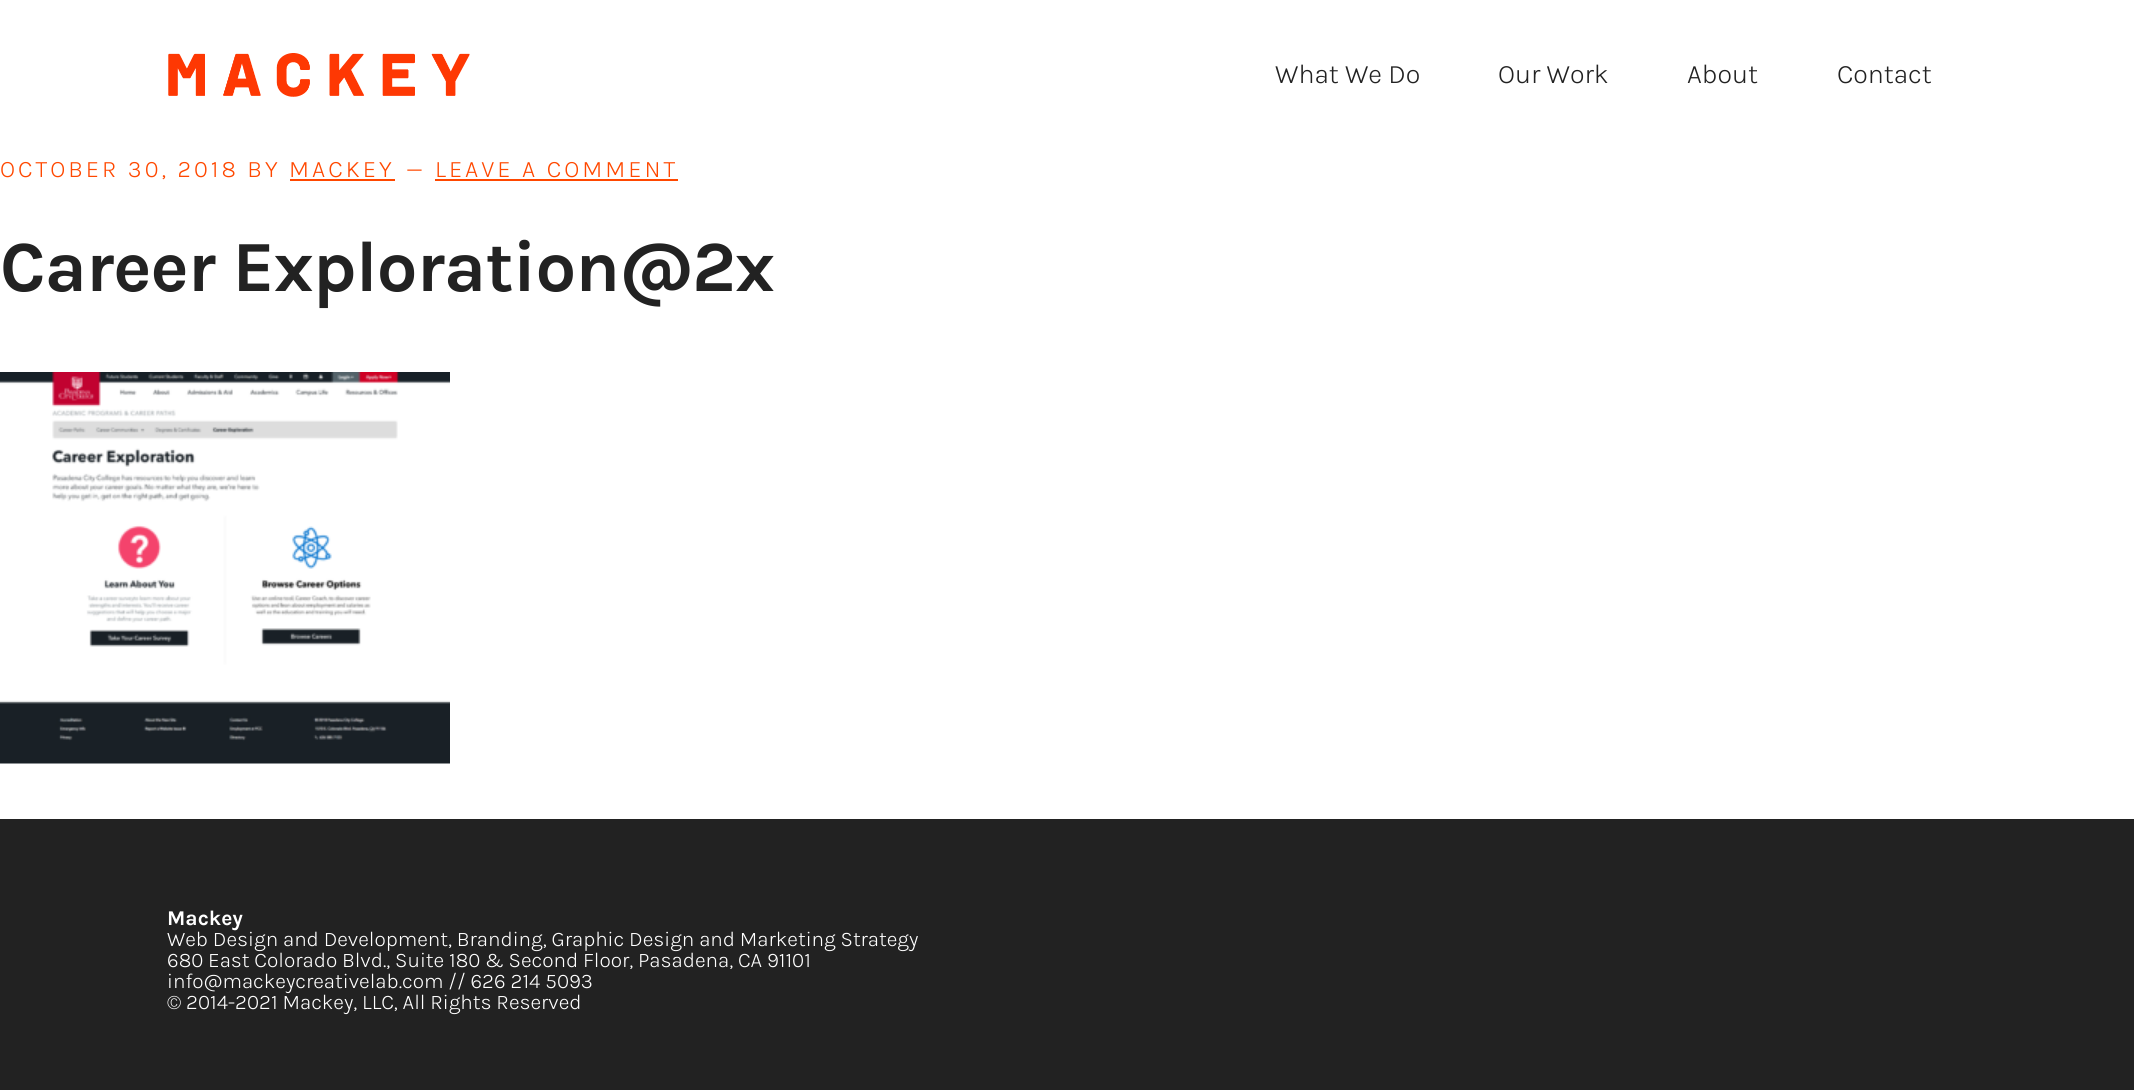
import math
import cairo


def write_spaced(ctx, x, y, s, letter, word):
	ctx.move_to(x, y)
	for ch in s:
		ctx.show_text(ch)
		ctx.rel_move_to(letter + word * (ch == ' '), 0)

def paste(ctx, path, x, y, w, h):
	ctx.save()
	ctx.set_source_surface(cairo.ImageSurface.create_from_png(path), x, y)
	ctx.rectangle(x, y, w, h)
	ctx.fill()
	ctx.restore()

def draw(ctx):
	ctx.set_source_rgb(1, 1, 1)
	ctx.paint()
	paste(ctx, 'media/1.png', 168, 53, 302, 44)
	ctx.select_font_face('Karla Light')
	ctx.set_font_size(27)
	ctx.set_source_rgb(0.133, 0.133, 0.133)
	for x, y, s in [
		(1275, 83, 'What We Do'),
		(1498, 83, 'Our Work'),
		(1687, 83, 'About'),
		(1837, 83, 'Contact'),
	]:
		ctx.move_to(x, y)
		ctx.show_text(s)
	ctx.set_font_size(24)
	ctx.set_source_rgb(1, 0.282, 0)
	for x, y, s in [
		(0, 177, 'OCTOBER 30, 2018 BY MACKEY'),
		(406, 177, '—'),
		(435, 177, 'LEAVE A COMMENT'),
	]:
		write_spaced(ctx, x, y, s, 3, 0)
	ctx.rectangle(435, 179, 243, 2)
	ctx.fill()
	ctx.rectangle(290, 179, 105, 2)
	ctx.fill()
	ctx.select_font_face('Karla', cairo.FONT_SLANT_NORMAL, cairo.FONT_WEIGHT_BOLD)
	ctx.set_font_size(72)
	ctx.set_source_rgb(0.133, 0.133, 0.133)
	write_spaced(ctx, 0, 291, 'Career Exploration@2x', -0.9, 0)
	paste(ctx, 'media/2.png', 0, 372, 450, 392)
	ctx.rectangle(0, 819, 2134, 271)
	ctx.fill()
	ctx.set_font_size(21)
	ctx.set_source_rgb(1, 1, 1)
	ctx.move_to(167, 925)
	ctx.show_text('Mackey')
	ctx.select_font_face('Karla Light')
	for x, y, s in [
		(167, 946, 'Web Design and Development, Branding, Graphic Design and Marketing Strategy'),
		(167, 967, '680 East Colorado Blvd., Suite 180 & Second Floor, Pasadena, CA 91101'),
		(167, 988, 'info@mackeycreativelab.com // 626 214 5093'),
		(167, 1009, '© 2014-2021 Mackey, LLC, All Rights Reserved'),
	]:
		ctx.move_to(x, y)
		ctx.show_text(s)


surface = cairo.ImageSurface(cairo.FORMAT_RGB24, 2134, 1090)
ctx = cairo.Context(surface)
options = cairo.FontOptions()
options.set_hint_metrics(cairo.HINT_METRICS_OFF)
options.set_hint_style(cairo.HINT_STYLE_NONE)
ctx.set_font_options(options)
ctx.set_miter_limit(4)
draw(ctx)
surface.write_to_png('image.png')
